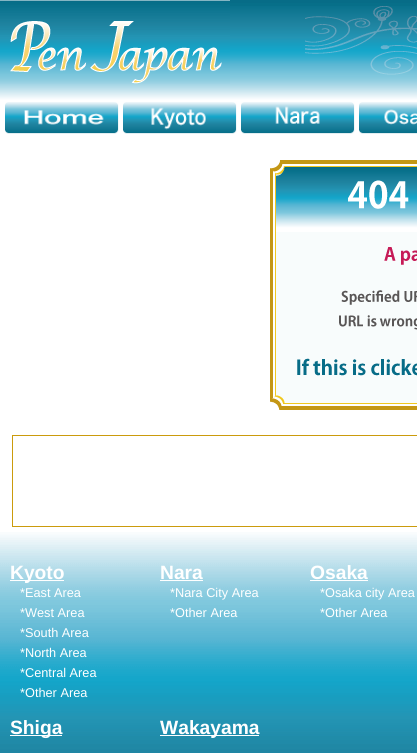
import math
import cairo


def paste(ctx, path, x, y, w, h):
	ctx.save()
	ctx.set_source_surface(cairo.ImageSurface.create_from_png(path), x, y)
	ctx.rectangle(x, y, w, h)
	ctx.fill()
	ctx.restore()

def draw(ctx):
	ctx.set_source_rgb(1, 1, 1)
	ctx.paint()
	paste(ctx, 'media/1.png', 230, 0, 187, 6)
	paste(ctx, 'media/2.png', 0, 6, 417, 94)
	paste(ctx, 'media/3.png', 0, 0, 230, 84)
	paste(ctx, 'media/4.png', 5, 102, 114, 32)
	paste(ctx, 'media/5.png', 123, 102, 114, 32)
	paste(ctx, 'media/6.png', 241, 102, 114, 32)
	paste(ctx, 'media/7.png', 359, 102, 58, 32)
	paste(ctx, 'media/8.png', 270, 160, 147, 250)
	ctx.rectangle(12.5, 435.5, 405, 91)
	ctx.set_source_rgb(0.796, 0.608, 0.047)
	ctx.set_line_width(1)
	ctx.stroke()
	paste(ctx, 'media/9.png', 0, 532, 417, 221)
	ctx.set_source_rgb(1, 1, 1)
	ctx.rectangle(10, 580, 54, 1)
	ctx.fill()
	ctx.select_font_face('Liberation Sans', cairo.FONT_SLANT_NORMAL, cairo.FONT_WEIGHT_BOLD)
	ctx.set_font_size(19.25)
	ctx.move_to(10, 579)
	ctx.show_text('Kyoto')
	ctx.move_to(160, 579)
	ctx.show_text('Nara')
	ctx.rectangle(160, 580, 43, 1)
	ctx.fill()
	ctx.move_to(310, 579)
	ctx.show_text('Osaka')
	ctx.rectangle(310, 580, 58, 1)
	ctx.fill()
	ctx.select_font_face('Liberation Sans')
	ctx.set_font_size(12.75)
	for x, y, s in [
		(20, 597, '*East Area'),
		(170, 597, '*Nara City Area'),
		(320, 597, '*Osaka city Area'),
		(20, 617, '*West Area'),
		(170, 617, '*Other Area'),
		(320, 617, '*Other Area'),
		(20, 637, '*South Area'),
		(20, 657, '*North Area'),
		(20, 677, '*Central Area'),
		(20, 697, '*Other Area'),
	]:
		ctx.move_to(x, y)
		ctx.show_text(s)
	ctx.rectangle(10, 735, 52, 1)
	ctx.fill()
	ctx.select_font_face('Liberation Sans', cairo.FONT_SLANT_NORMAL, cairo.FONT_WEIGHT_BOLD)
	ctx.set_font_size(19.25)
	ctx.move_to(10, 734)
	ctx.show_text('Shiga')
	ctx.rectangle(160, 735, 99, 1)
	ctx.fill()
	ctx.move_to(160, 734)
	ctx.show_text('Wakayama')


surface = cairo.ImageSurface(cairo.FORMAT_RGB24, 417, 753)
ctx = cairo.Context(surface)
options = cairo.FontOptions()
options.set_hint_metrics(cairo.HINT_METRICS_OFF)
options.set_hint_style(cairo.HINT_STYLE_NONE)
ctx.set_font_options(options)
ctx.set_miter_limit(4)
draw(ctx)
surface.write_to_png('image.png')
